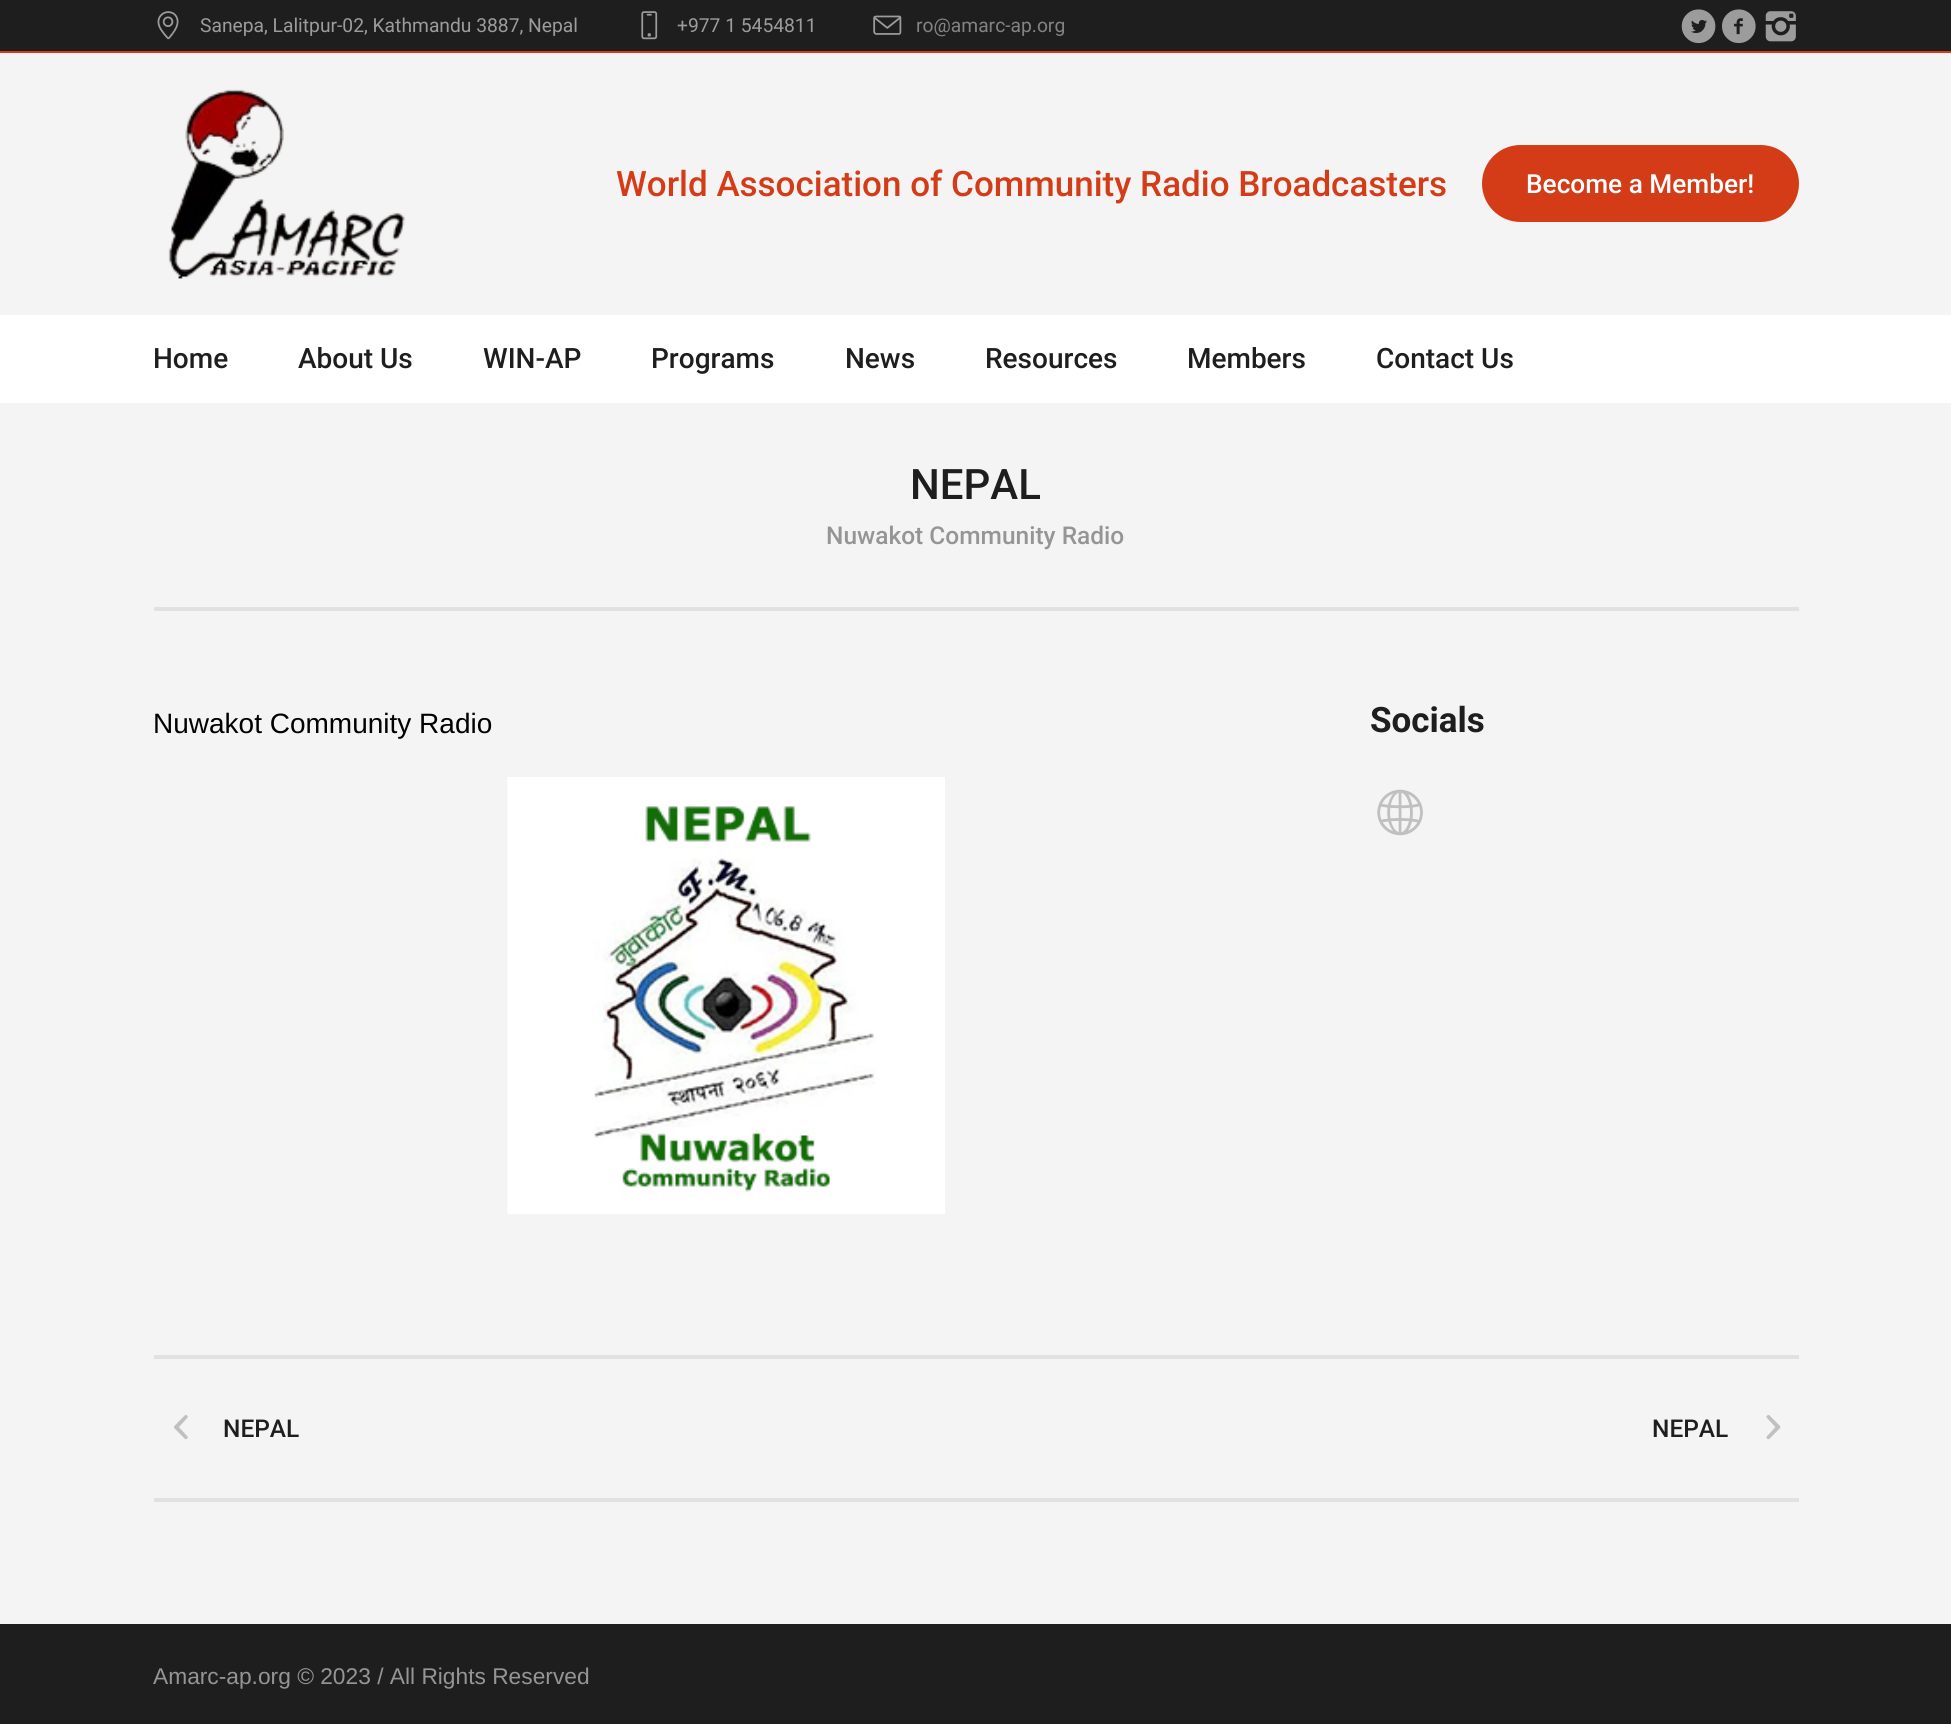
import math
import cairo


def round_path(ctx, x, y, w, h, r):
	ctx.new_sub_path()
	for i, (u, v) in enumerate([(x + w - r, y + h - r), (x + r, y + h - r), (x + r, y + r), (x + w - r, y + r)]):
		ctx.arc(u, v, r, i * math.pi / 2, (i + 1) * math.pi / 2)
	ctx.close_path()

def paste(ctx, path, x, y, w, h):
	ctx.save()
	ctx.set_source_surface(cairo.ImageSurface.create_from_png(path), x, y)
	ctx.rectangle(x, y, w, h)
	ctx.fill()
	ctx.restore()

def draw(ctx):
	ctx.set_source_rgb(0.957, 0.957, 0.957)
	ctx.paint()
	ctx.set_source_rgb(0.118, 0.118, 0.118)
	ctx.rectangle(0, 0, 1951, 51)
	ctx.fill()
	paste(ctx, 'media/1.png', 157, 11, 22, 29)
	ctx.select_font_face('Roboto')
	ctx.set_font_size(19.25)
	ctx.set_source_rgb(0.612, 0.612, 0.612)
	ctx.move_to(200, 32)
	ctx.show_text('Sanepa, Lalitpur-02, Kathmandu 3887, Nepal')
	paste(ctx, 'media/2.png', 641, 11, 17, 29)
	ctx.move_to(677, 32)
	ctx.show_text('+977 1 5454811')
	paste(ctx, 'media/3.png', 873, 15, 29, 20)
	ctx.set_source_rgb(0.514, 0.514, 0.514)
	ctx.move_to(916, 32)
	ctx.show_text('ro@amarc-ap.org')
	paste(ctx, 'media/4.png', 1681, 9, 35, 35)
	paste(ctx, 'media/5.png', 1722, 9, 34, 35)
	paste(ctx, 'media/6.png', 1765, 11, 31, 31)
	paste(ctx, 'media/7.png', 168, 89, 237, 190)
	ctx.select_font_face('Roboto Medium')
	ctx.set_font_size(35)
	ctx.set_source_rgb(0.831, 0.235, 0.094)
	ctx.move_to(616, 196)
	ctx.show_text('World Association of Community Radio Broadcasters')
	round_path(ctx, 1482, 145, 317, 77, 38.5)
	ctx.fill()
	ctx.set_font_size(26.25)
	ctx.set_source_rgb(1, 1, 1)
	ctx.move_to(1526, 193)
	ctx.show_text('Become a Member!')
	ctx.rectangle(0, 315, 1951, 88)
	ctx.fill()
	ctx.set_font_size(28)
	ctx.set_source_rgb(0.118, 0.118, 0.118)
	for x, y, s in [
		(153, 368, 'Home'),
		(298, 368, 'About Us'),
		(483, 368, 'WIN-AP'),
		(651, 368, 'Programs'),
		(845, 368, 'News'),
		(985, 368, 'Resources'),
		(1187, 368, 'Members'),
		(1376, 368, 'Contact Us'),
	]:
		ctx.move_to(x, y)
		ctx.show_text(s)
	ctx.set_source_rgb(0.831, 0.235, 0.094)
	ctx.rectangle(0, 51, 1951, 2)
	ctx.fill()
	ctx.set_source_rgb(0.882, 0.882, 0.882)
	ctx.rectangle(154, 607, 1645, 4)
	ctx.fill()
	ctx.set_font_size(42)
	ctx.set_source_rgb(0.118, 0.118, 0.118)
	ctx.move_to(910, 499)
	ctx.show_text('NEPAL')
	ctx.set_font_size(24.5)
	ctx.set_source_rgb(0.584, 0.584, 0.584)
	ctx.move_to(826, 544)
	ctx.show_text('Nuwakot Community Radio')
	ctx.select_font_face('Liberation Sans')
	ctx.set_font_size(28)
	ctx.set_source_rgb(0, 0, 0)
	ctx.move_to(153, 733)
	ctx.show_text('Nuwakot Community Radio')
	paste(ctx, 'media/8.png', 507, 777, 438, 437)
	ctx.select_font_face('Roboto', cairo.FONT_SLANT_NORMAL, cairo.FONT_WEIGHT_BOLD)
	ctx.set_font_size(35)
	ctx.set_source_rgb(0.118, 0.118, 0.118)
	ctx.move_to(1370, 732)
	ctx.show_text('Socials')
	paste(ctx, 'media/9.png', 1377, 789, 46, 47)
	ctx.set_source_rgb(0.882, 0.882, 0.882)
	ctx.rectangle(154, 1355, 1645, 4)
	ctx.fill()
	ctx.rectangle(154, 1498, 1645, 4)
	ctx.fill()
	paste(ctx, 'media/10.png', 174, 1415, 14, 25)
	ctx.select_font_face('Roboto Medium')
	ctx.set_font_size(24.5)
	ctx.set_source_rgb(0.118, 0.118, 0.118)
	ctx.move_to(223, 1437)
	ctx.show_text('NEPAL')
	ctx.move_to(1652, 1437)
	ctx.show_text('NEPAL')
	paste(ctx, 'media/11.png', 1766, 1415, 15, 25)
	ctx.rectangle(0, 1624, 1951, 100)
	ctx.fill()
	ctx.select_font_face('Liberation Sans')
	ctx.set_font_size(22.75)
	ctx.set_source_rgb(0.584, 0.584, 0.584)
	ctx.move_to(153, 1684)
	ctx.show_text('Amarc-ap.org © 2023 / All Rights Reserved')


surface = cairo.ImageSurface(cairo.FORMAT_RGB24, 1951, 1724)
ctx = cairo.Context(surface)
options = cairo.FontOptions()
options.set_hint_metrics(cairo.HINT_METRICS_OFF)
options.set_hint_style(cairo.HINT_STYLE_NONE)
ctx.set_font_options(options)
ctx.set_miter_limit(4)
draw(ctx)
surface.write_to_png('image.png')
